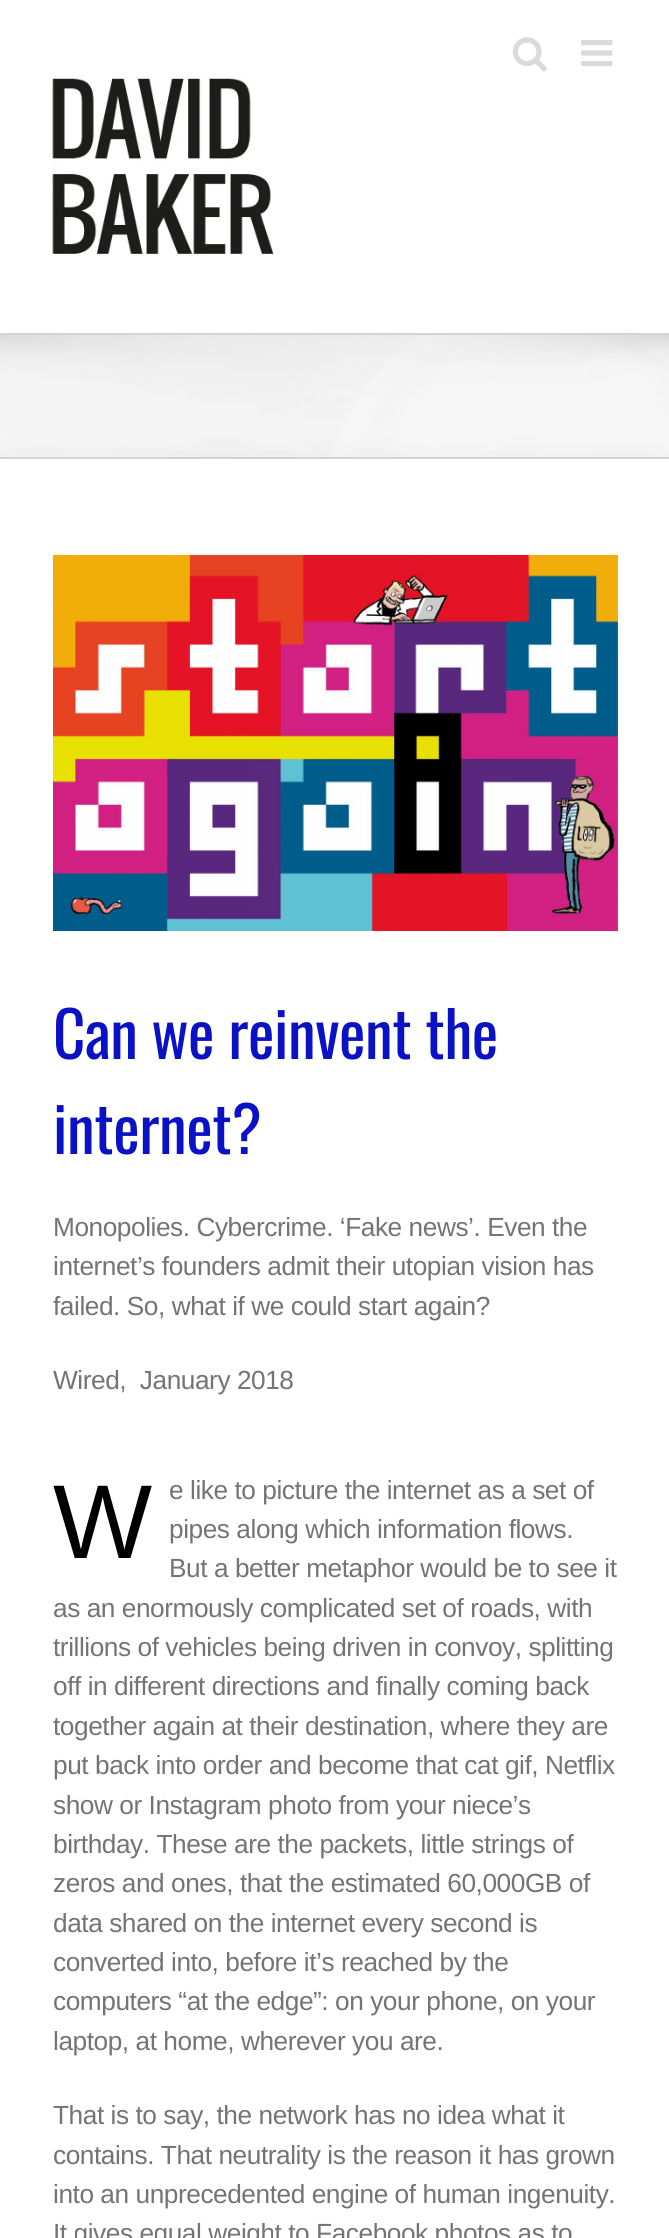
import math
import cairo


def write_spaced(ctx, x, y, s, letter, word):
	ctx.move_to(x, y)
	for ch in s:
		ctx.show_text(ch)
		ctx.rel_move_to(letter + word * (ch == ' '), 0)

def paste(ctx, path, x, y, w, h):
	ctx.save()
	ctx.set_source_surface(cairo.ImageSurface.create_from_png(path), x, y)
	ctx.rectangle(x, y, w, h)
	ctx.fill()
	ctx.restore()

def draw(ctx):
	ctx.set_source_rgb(1, 1, 1)
	ctx.paint()
	paste(ctx, 'media/1.png', 512, 37, 35, 35)
	paste(ctx, 'media/2.png', 581, 40, 32, 27)
	paste(ctx, 'media/3.png', 52, 77, 222, 179)
	ctx.set_source_rgb(0.965, 0.965, 0.965)
	ctx.rectangle(0, 335, 669, 122)
	ctx.fill()
	paste(ctx, 'media/4.png', 0, 335, 669, 122)
	ctx.set_source_rgb(0.824, 0.827, 0.831)
	ctx.rectangle(0, 333, 669, 2)
	ctx.fill()
	ctx.rectangle(0, 457, 669, 2)
	ctx.fill()
	paste(ctx, 'media/5.png', 53, 555, 565, 376)
	ctx.select_font_face('Oswald')
	ctx.set_font_size(63)
	ctx.set_source_rgb(0.043, 0.067, 0.769)
	write_spaced(ctx, 53, 1059, 'Can we reinvent the', -0.45, 0)
	write_spaced(ctx, 53, 1154, 'internet?', -0.45, 0)
	ctx.select_font_face('Liberation Sans')
	ctx.set_font_size(26.25)
	ctx.set_source_rgb(0.455, 0.455, 0.455)
	for x, y, s in [
		(53, 1236, 'Monopolies. Cybercrime. ‘Fake news’. Even the'),
		(53, 1275, 'internet’s founders admit their utopian vision has'),
		(53, 1315, 'failed. So, what if we could start again?'),
		(53, 1389, 'Wired,  January 2018'),
	]:
		write_spaced(ctx, x, y, s, -0.45, 0)
	ctx.set_font_size(105)
	ctx.set_source_rgb(0, 0, 0)
	write_spaced(ctx, 53, 1558, 'W', -0.45, 0)
	ctx.set_font_size(26.25)
	ctx.set_source_rgb(0.455, 0.455, 0.455)
	for x, y, s in [
		(169, 1499, 'e like to picture the internet as a set of'),
		(169, 1538, 'pipes along which information flows.'),
		(169, 1577, 'But a better metaphor would be to see it'),
		(53, 1617, 'as an enormously complicated set of roads, with'),
		(53, 1656, 'trillions of vehicles being driven in convoy, splitting'),
		(53, 1695, 'off in different directions and finally coming back'),
		(53, 1735, 'together again at their destination, where they are'),
		(53, 1774, 'put back into order and become that cat gif, Netflix'),
		(53, 1814, 'show or Instagram photo from your niece’s'),
		(53, 1853, 'birthday. These are the packets, little strings of'),
		(53, 1892, 'zeros and ones, that the estimated 60,000GB of'),
		(53, 1932, 'data shared on the internet every second is'),
		(53, 1971, 'converted into, before it’s reached by the'),
		(53, 2010, 'computers “at the edge”: on your phone, on your'),
		(53, 2050, 'laptop, at home, wherever you are.'),
		(53, 2124, 'That is to say, the network has no idea what it'),
		(53, 2164, 'contains. That neutrality is the reason it has grown'),
		(53, 2203, 'into an unprecedented engine of human ingenuity.'),
		(53, 2242, 'It gives equal weight to Facebook photos as to'),
	]:
		write_spaced(ctx, x, y, s, -0.45, 0)


surface = cairo.ImageSurface(cairo.FORMAT_RGB24, 669, 2238)
ctx = cairo.Context(surface)
options = cairo.FontOptions()
options.set_hint_metrics(cairo.HINT_METRICS_OFF)
options.set_hint_style(cairo.HINT_STYLE_NONE)
ctx.set_font_options(options)
ctx.set_miter_limit(4)
draw(ctx)
surface.write_to_png('image.png')
